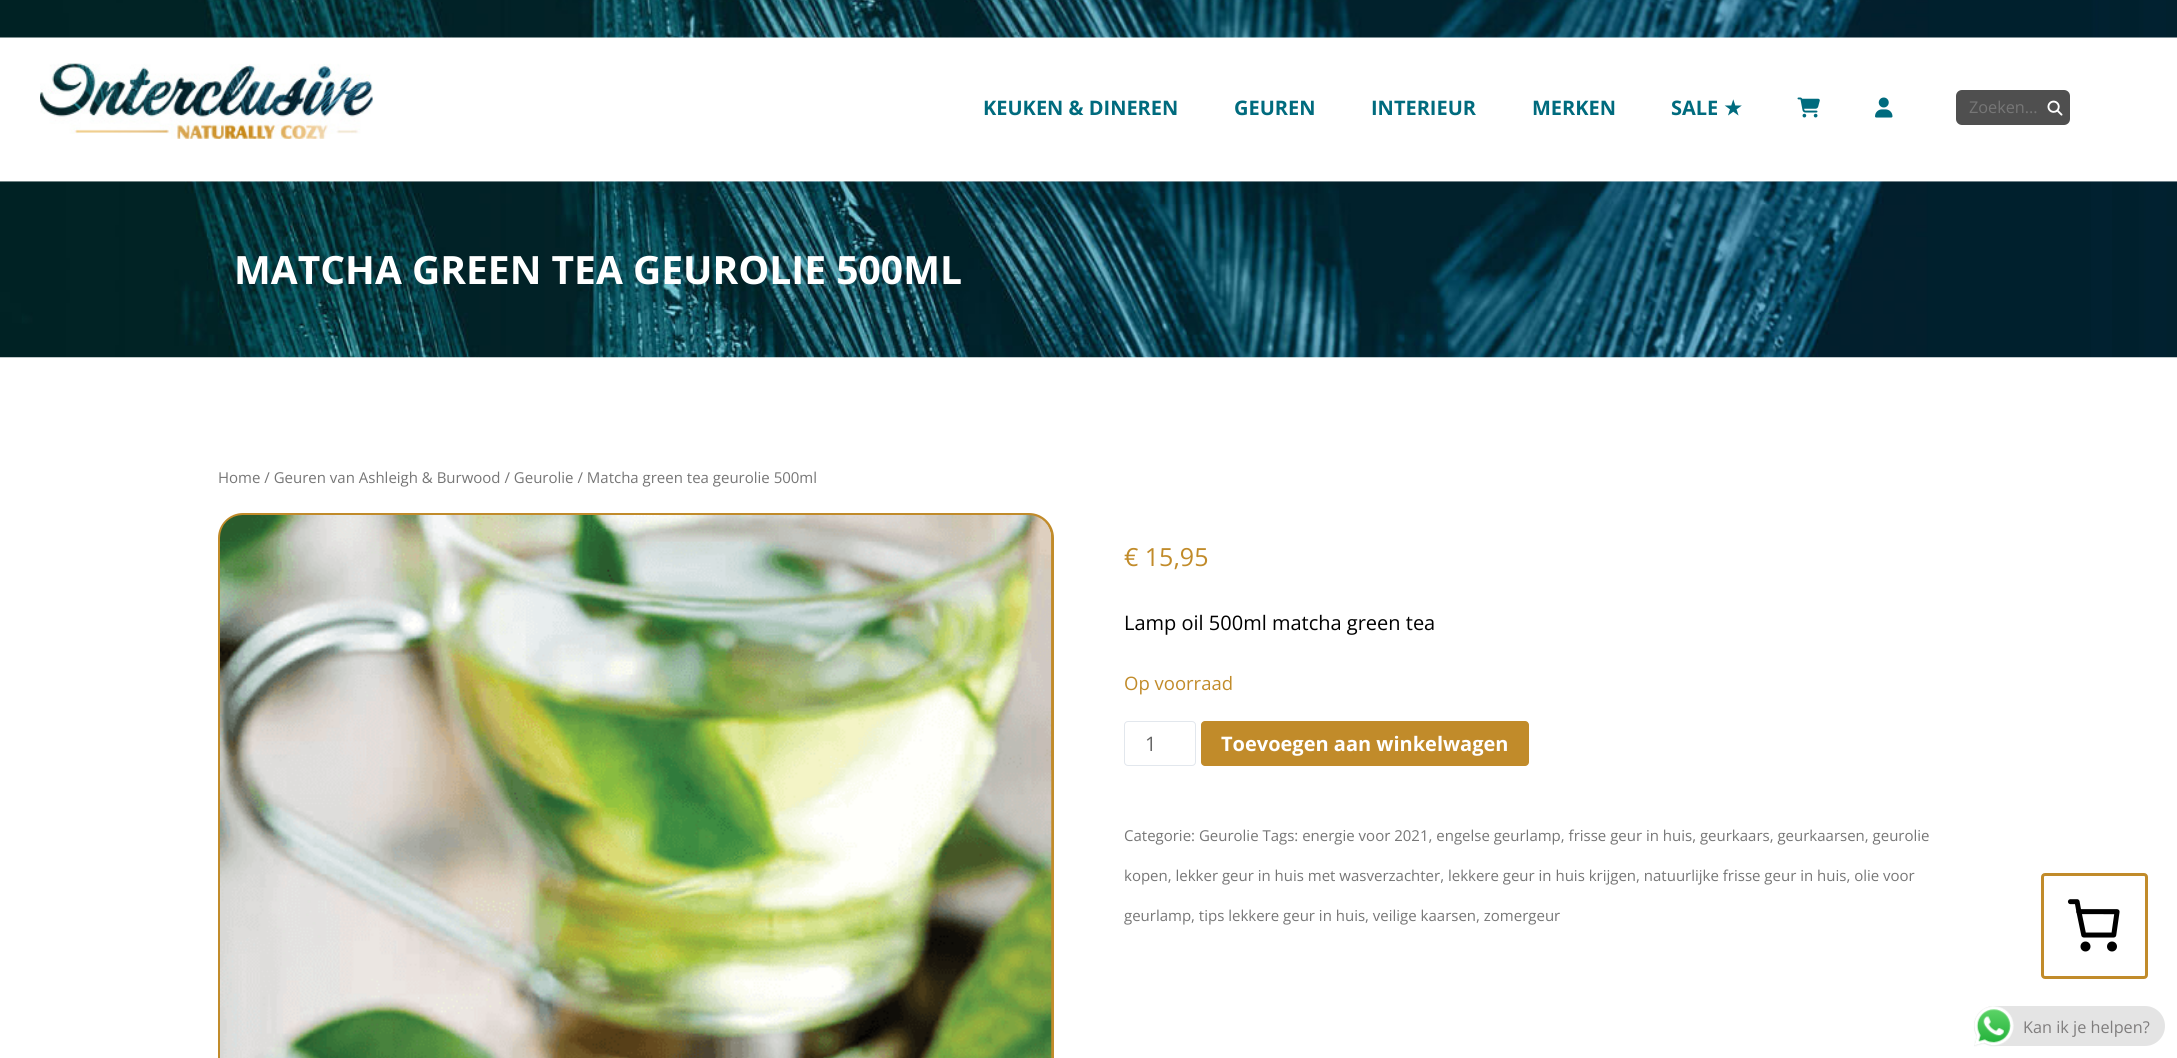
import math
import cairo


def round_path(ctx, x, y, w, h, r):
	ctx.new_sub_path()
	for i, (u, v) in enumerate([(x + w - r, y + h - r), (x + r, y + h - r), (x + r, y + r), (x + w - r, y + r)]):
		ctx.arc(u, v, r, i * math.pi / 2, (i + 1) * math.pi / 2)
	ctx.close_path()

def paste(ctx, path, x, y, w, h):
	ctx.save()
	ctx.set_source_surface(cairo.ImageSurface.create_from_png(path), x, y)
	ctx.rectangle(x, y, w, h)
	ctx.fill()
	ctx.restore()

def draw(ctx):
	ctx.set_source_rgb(1, 1, 1)
	ctx.paint()
	paste(ctx, 'media/1.png', 0, 0, 2177, 38)
	paste(ctx, 'media/2.png', 40, 63, 333, 76)
	ctx.select_font_face('Open Sans', cairo.FONT_SLANT_NORMAL, cairo.FONT_WEIGHT_BOLD)
	ctx.set_font_size(20)
	ctx.set_source_rgb(0, 0.42, 0.494)
	for x, y, s in [
		(983, 115, 'KEUKEN & DINEREN'),
		(1234, 115, 'GEUREN'),
		(1371, 115, 'INTERIEUR'),
		(1532, 115, 'MERKEN'),
		(1671, 115, 'SALE'),
	]:
		ctx.move_to(x, y)
		ctx.show_text(s)
	ctx.select_font_face('DejaVu Sans', cairo.FONT_SLANT_NORMAL, cairo.FONT_WEIGHT_BOLD)
	ctx.move_to(1724, 115)
	ctx.show_text('★')
	paste(ctx, 'media/3.png', 1797, 97, 23, 21)
	paste(ctx, 'media/4.png', 1875, 97, 18, 21)
	ctx.set_source_rgb(0.31, 0.31, 0.31)
	round_path(ctx, 1956, 90, 114, 35, 6)
	ctx.fill()
	ctx.select_font_face('Open Sans')
	ctx.set_font_size(16.25)
	ctx.set_source_rgb(0.463, 0.463, 0.463)
	ctx.move_to(1969, 113)
	ctx.show_text('Zoeken...')
	paste(ctx, 'media/5.png', 2047, 100, 16, 16)
	paste(ctx, 'media/6.png', 0, 181, 2177, 177)
	ctx.select_font_face('Open Sans', cairo.FONT_SLANT_NORMAL, cairo.FONT_WEIGHT_BOLD)
	ctx.set_font_size(39)
	ctx.set_source_rgb(1, 1, 1)
	ctx.move_to(234, 284)
	ctx.show_text('MATCHA GREEN TEA GEUROLIE 500ML')
	ctx.select_font_face('Open Sans')
	ctx.set_font_size(15)
	ctx.set_source_rgb(0.463, 0.463, 0.463)
	ctx.move_to(218, 483)
	ctx.show_text('Home / Geuren van Ashleigh & Burwood / Geurolie / Matcha green tea geurolie 500ml')
	ctx.new_path()
	ctx.move_to(243, 514.5)
	ctx.line_to(1029, 514.5)
	ctx.curve_to(1042, 514.5, 1052.5, 525, 1052.5, 538)
	ctx.line_to(1052.5, 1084.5)
	ctx.line_to(219.5, 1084.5)
	ctx.line_to(219.5, 538)
	ctx.curve_to(219.5, 525, 230, 514.5, 243, 514.5)
	ctx.close_path()
	ctx.set_source_rgb(0.757, 0.545, 0.165)
	ctx.set_line_width(3)
	ctx.stroke()
	paste(ctx, 'media/7.png', 220, 515, 832, 543)
	ctx.set_font_size(25)
	ctx.move_to(1124, 566)
	ctx.show_text('€ 15,95')
	ctx.set_font_size(20)
	ctx.set_source_rgb(0, 0, 0)
	ctx.move_to(1124, 630)
	ctx.show_text('Lamp oil 500ml matcha green tea')
	ctx.set_font_size(18.5)
	ctx.set_source_rgb(0.757, 0.545, 0.165)
	ctx.move_to(1124, 690)
	ctx.show_text('Op voorraad')
	round_path(ctx, 1124.5, 721.5, 71, 44, 3.5)
	ctx.set_source_rgb(0.886, 0.906, 0.929)
	ctx.set_line_width(1)
	ctx.stroke()
	ctx.set_font_size(20)
	ctx.set_source_rgb(0.4, 0.4, 0.4)
	ctx.move_to(1145, 751)
	ctx.show_text('1')
	ctx.set_source_rgb(0.757, 0.545, 0.165)
	round_path(ctx, 1201, 721, 328, 45, 4)
	ctx.fill()
	ctx.select_font_face('Open Sans', cairo.FONT_SLANT_NORMAL, cairo.FONT_WEIGHT_BOLD)
	ctx.set_source_rgb(1, 1, 1)
	ctx.move_to(1221, 751)
	ctx.show_text('Toevoegen aan winkelwagen')
	ctx.select_font_face('Open Sans')
	ctx.set_font_size(15)
	ctx.set_source_rgb(0.463, 0.463, 0.463)
	for x, y, s in [
		(1124, 841, 'Categorie: Geurolie Tags: energie voor 2021, engelse geurlamp, frisse geur in huis, geurkaars, geurkaarsen, geurolie'),
		(1124, 881, 'kopen, lekker geur in huis met wasverzachter, lekkere geur in huis krijgen, natuurlijke frisse geur in huis, olie voor'),
		(1124, 921, 'geurlamp, tips lekkere geur in huis, veilige kaarsen, zomergeur'),
	]:
		ctx.move_to(x, y)
		ctx.show_text(s)
	round_path(ctx, 2042.5, 874.5, 104, 103, 2.5)
	ctx.set_source_rgb(0.757, 0.545, 0.165)
	ctx.set_line_width(3)
	ctx.stroke()
	paste(ctx, 'media/8.png', 2067, 899, 53, 53)
	ctx.set_source_rgb(0.894, 0.894, 0.894)
	round_path(ctx, 1974, 1006, 191, 40, 20)
	ctx.fill()
	paste(ctx, 'media/9.png', 1974, 1006, 40, 41)
	ctx.set_font_size(16.25)
	ctx.set_source_rgb(0.498, 0.49, 0.49)
	ctx.move_to(2023, 1033)
	ctx.show_text('Kan ik je helpen?')


surface = cairo.ImageSurface(cairo.FORMAT_RGB24, 2177, 1058)
ctx = cairo.Context(surface)
options = cairo.FontOptions()
options.set_hint_metrics(cairo.HINT_METRICS_OFF)
options.set_hint_style(cairo.HINT_STYLE_NONE)
ctx.set_font_options(options)
ctx.set_miter_limit(4)
draw(ctx)
surface.write_to_png('image.png')
